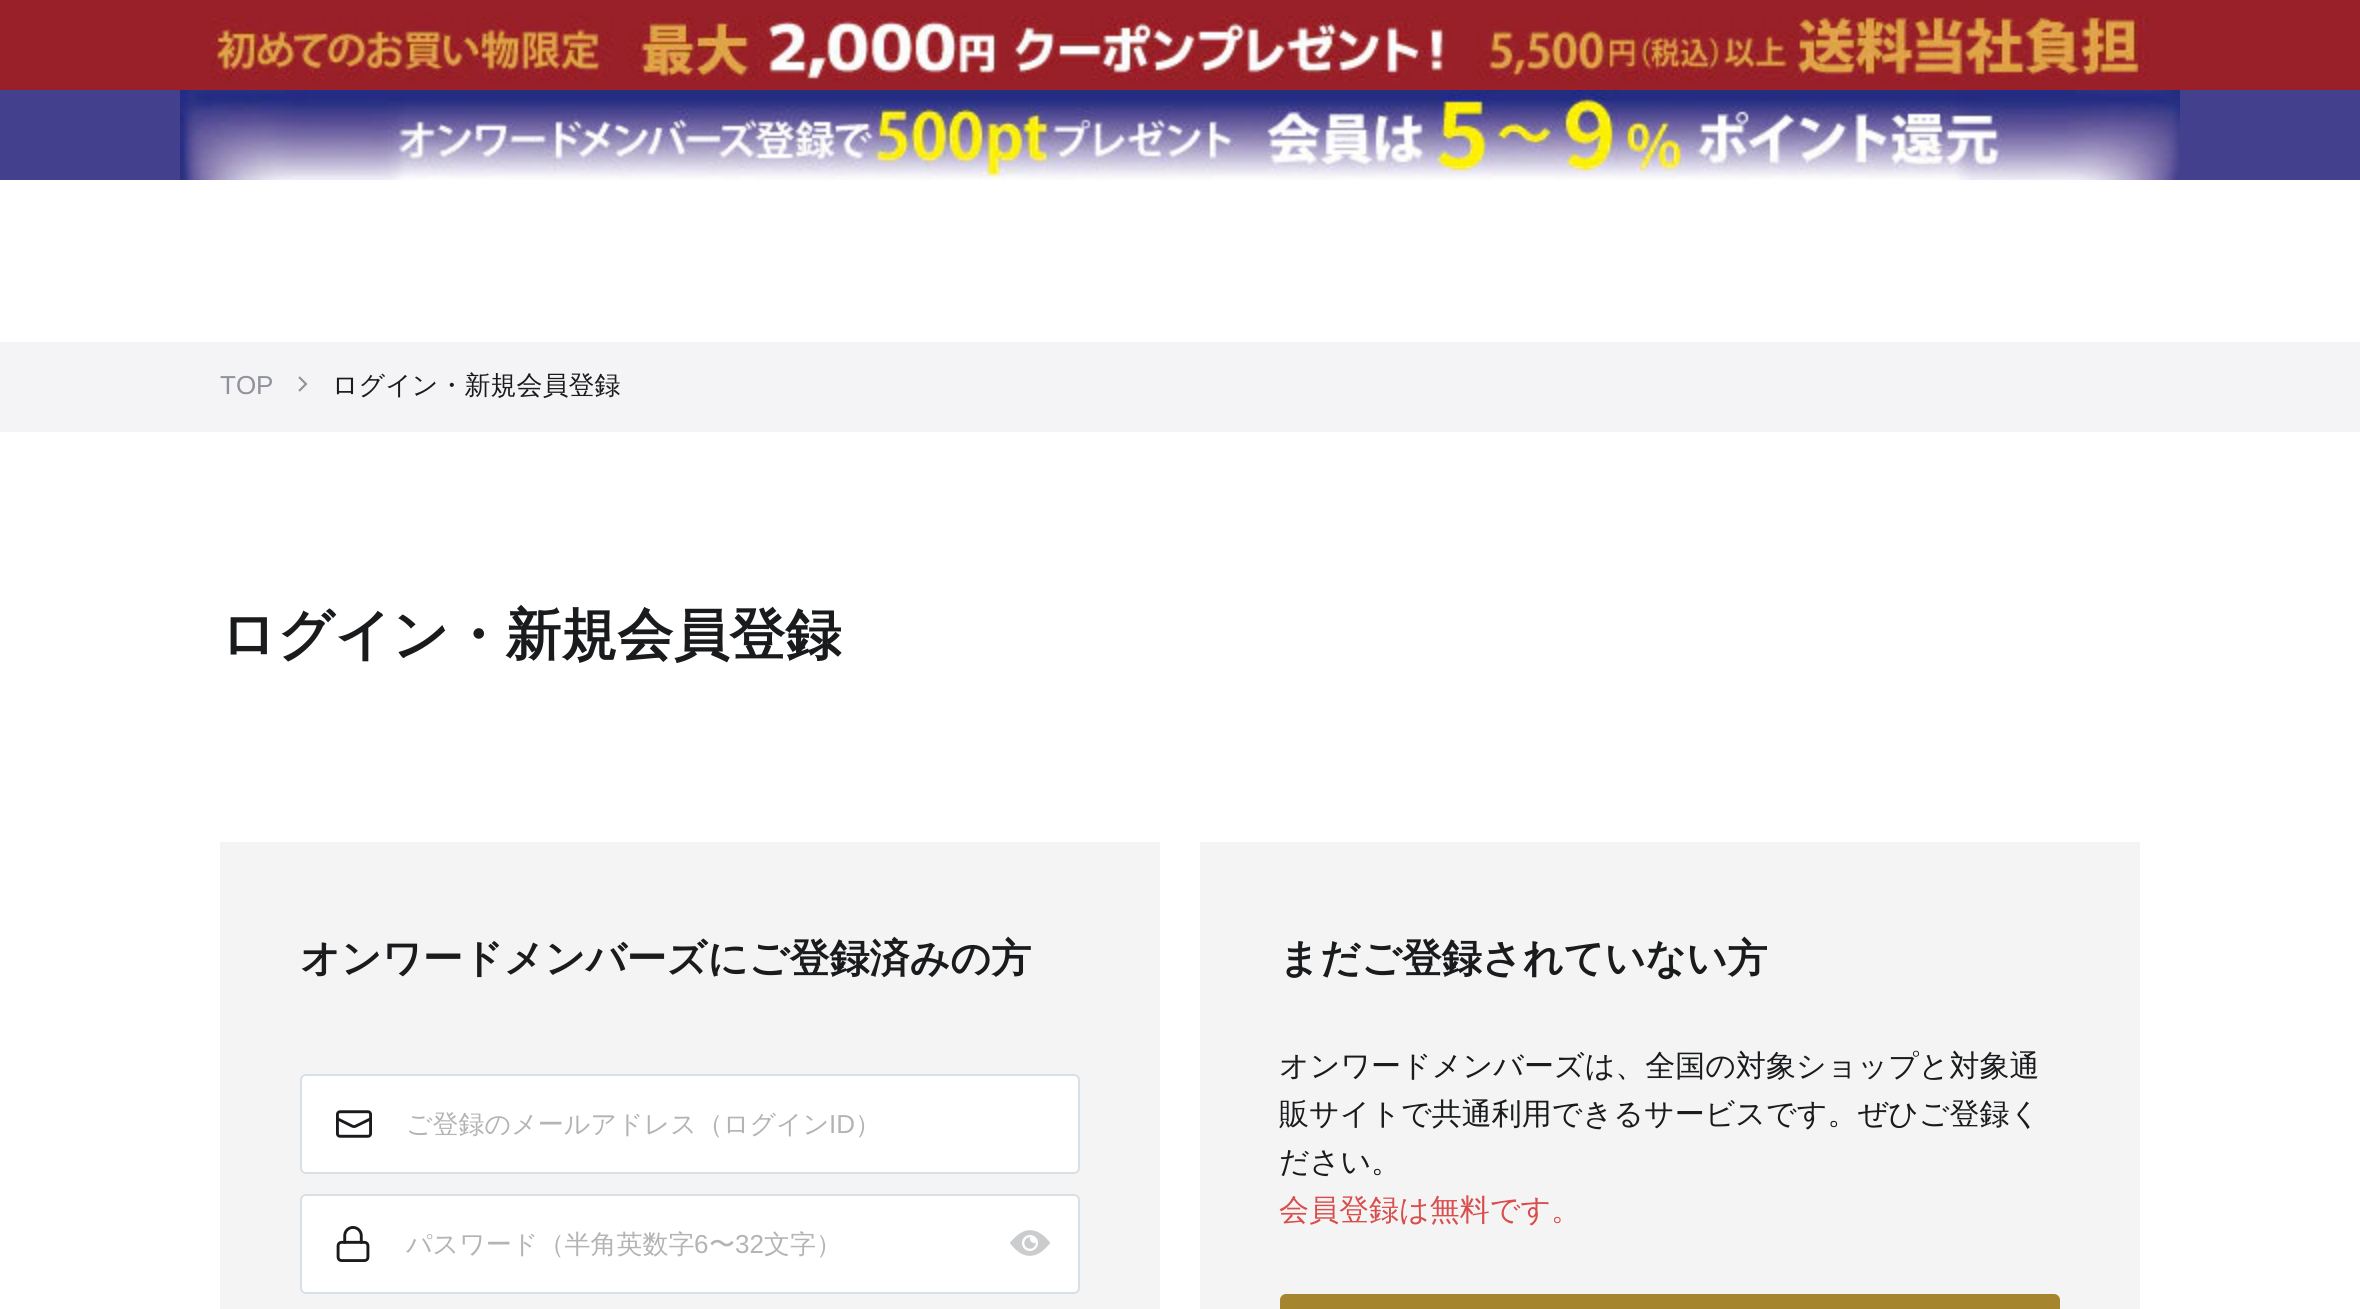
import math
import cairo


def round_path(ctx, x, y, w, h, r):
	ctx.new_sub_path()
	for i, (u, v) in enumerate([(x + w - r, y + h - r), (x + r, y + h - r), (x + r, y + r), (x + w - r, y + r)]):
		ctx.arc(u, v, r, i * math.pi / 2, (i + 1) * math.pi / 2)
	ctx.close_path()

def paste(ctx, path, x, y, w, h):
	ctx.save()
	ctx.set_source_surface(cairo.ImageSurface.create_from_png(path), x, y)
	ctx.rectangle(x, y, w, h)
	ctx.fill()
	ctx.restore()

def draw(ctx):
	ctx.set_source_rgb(1, 1, 1)
	ctx.paint()
	ctx.set_source_rgb(0.6, 0.125, 0.161)
	ctx.rectangle(0, 0, 2360, 90)
	ctx.fill()
	paste(ctx, 'media/1.png', 211, 14, 1938, 68)
	ctx.set_source_rgb(0.263, 0.251, 0.553)
	ctx.rectangle(0, 90, 2360, 90)
	ctx.fill()
	paste(ctx, 'media/2.png', 180, 90, 2000, 90)
	ctx.set_source_rgb(0.957, 0.957, 0.961)
	ctx.rectangle(0, 342, 2360, 90)
	ctx.fill()
	ctx.select_font_face('Liberation Sans')
	ctx.set_font_size(26)
	ctx.set_source_rgb(0.561, 0.573, 0.604)
	ctx.move_to(220, 394)
	ctx.show_text('TOP')
	ctx.new_path()
	ctx.move_to(299, 391)
	ctx.line_to(306, 384)
	ctx.line_to(299, 377)
	ctx.set_line_width(2.1)
	ctx.stroke()
	ctx.select_font_face('WenQuanYi Zen Hei Medium')
	ctx.set_source_rgb(0.098, 0.106, 0.114)
	ctx.move_to(332, 394)
	ctx.show_text('ログイン・新規会員登録')
	ctx.select_font_face('WenQuanYi Zen Hei', cairo.FONT_SLANT_NORMAL, cairo.FONT_WEIGHT_BOLD)
	ctx.set_font_size(56)
	ctx.move_to(220, 654)
	ctx.show_text('ログイン・新規会員登録')
	ctx.set_source_rgb(0.957, 0.957, 0.957)
	ctx.rectangle(220, 842, 940, 467)
	ctx.fill()
	ctx.set_font_size(40)
	ctx.set_source_rgb(0.098, 0.106, 0.114)
	ctx.move_to(300, 972)
	ctx.show_text('オンワードメンバーズにご登録済みの方')
	ctx.set_source_rgb(1, 1, 1)
	round_path(ctx, 301, 1075, 778, 98, 5)
	ctx.fill_preserve()
	ctx.set_source_rgb(0.851, 0.875, 0.902)
	ctx.set_line_width(2)
	ctx.stroke()
	paste(ctx, 'media/3.png', 336, 1110, 36, 28)
	ctx.select_font_face('WenQuanYi Zen Hei Medium')
	ctx.set_font_size(26)
	ctx.set_source_rgb(0.706, 0.706, 0.706)
	ctx.move_to(406, 1133)
	ctx.show_text('ご登録のメールアドレス（ログイン')
	ctx.select_font_face('Liberation Sans')
	ctx.move_to(829, 1133)
	ctx.show_text('ID')
	ctx.select_font_face('WenQuanYi Zen Hei Medium')
	ctx.move_to(855, 1133)
	ctx.show_text('）')
	ctx.set_source_rgb(1, 1, 1)
	round_path(ctx, 301, 1195, 778, 98, 5)
	ctx.fill_preserve()
	ctx.set_source_rgb(0.851, 0.875, 0.902)
	ctx.stroke()
	paste(ctx, 'media/4.png', 336, 1226, 34, 36)
	ctx.set_source_rgb(0.706, 0.706, 0.706)
	ctx.move_to(406, 1253)
	ctx.show_text('パスワード（半角英数字')
	ctx.select_font_face('Liberation Sans')
	ctx.move_to(694, 1253)
	ctx.show_text('6')
	ctx.select_font_face('WenQuanYi Zen Hei Medium')
	ctx.move_to(709, 1253)
	ctx.show_text('〜')
	ctx.select_font_face('Liberation Sans')
	ctx.move_to(735, 1253)
	ctx.show_text('32')
	ctx.select_font_face('WenQuanYi Zen Hei Medium')
	ctx.move_to(764, 1253)
	ctx.show_text('文字）')
	paste(ctx, 'media/5.png', 1010, 1230, 40, 26)
	ctx.set_source_rgb(0.957, 0.957, 0.957)
	ctx.rectangle(1200, 842, 940, 467)
	ctx.fill()
	ctx.select_font_face('WenQuanYi Zen Hei', cairo.FONT_SLANT_NORMAL, cairo.FONT_WEIGHT_BOLD)
	ctx.set_font_size(40)
	ctx.set_source_rgb(0.098, 0.106, 0.114)
	ctx.move_to(1279, 972)
	ctx.show_text('まだご登録されていない方')
	ctx.select_font_face('WenQuanYi Zen Hei Medium')
	ctx.set_font_size(30)
	for x, y, s in [
		(1279, 1076, 'オンワードメンバーズは、全国の対象ショップと対象通'),
		(1279, 1124, '販サイトで共通利用できるサービスです。ぜひご登録く'),
		(1279, 1172, 'ださい。'),
	]:
		ctx.move_to(x, y)
		ctx.show_text(s)
	ctx.set_source_rgb(0.851, 0.302, 0.302)
	ctx.move_to(1279, 1220)
	ctx.show_text('会員登録は無料です。')
	ctx.set_source_rgb(0.647, 0.522, 0.18)
	round_path(ctx, 1280, 1294, 780, 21, 6)
	ctx.fill()


surface = cairo.ImageSurface(cairo.FORMAT_RGB24, 2360, 1309)
ctx = cairo.Context(surface)
options = cairo.FontOptions()
options.set_hint_metrics(cairo.HINT_METRICS_OFF)
options.set_hint_style(cairo.HINT_STYLE_NONE)
ctx.set_font_options(options)
ctx.set_miter_limit(4)
draw(ctx)
surface.write_to_png('image.png')
